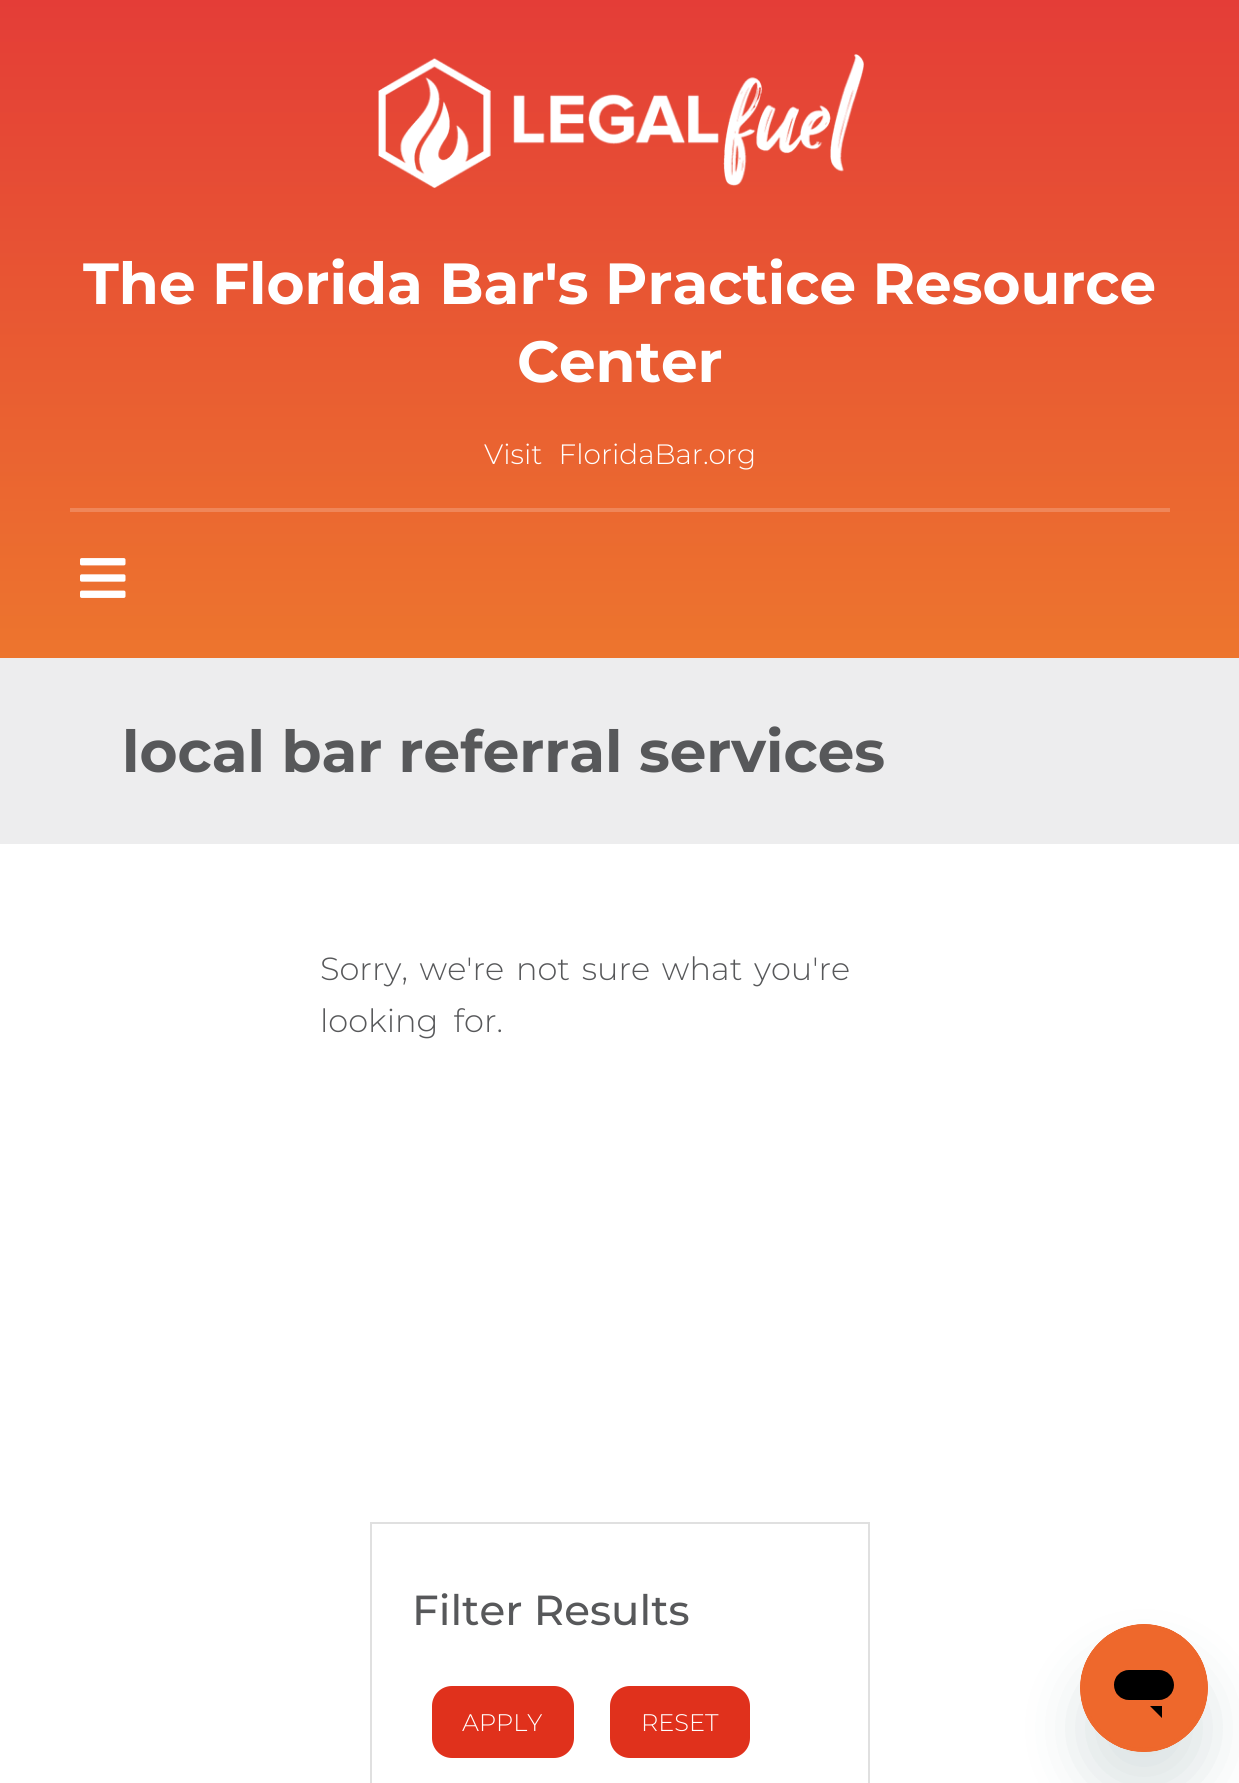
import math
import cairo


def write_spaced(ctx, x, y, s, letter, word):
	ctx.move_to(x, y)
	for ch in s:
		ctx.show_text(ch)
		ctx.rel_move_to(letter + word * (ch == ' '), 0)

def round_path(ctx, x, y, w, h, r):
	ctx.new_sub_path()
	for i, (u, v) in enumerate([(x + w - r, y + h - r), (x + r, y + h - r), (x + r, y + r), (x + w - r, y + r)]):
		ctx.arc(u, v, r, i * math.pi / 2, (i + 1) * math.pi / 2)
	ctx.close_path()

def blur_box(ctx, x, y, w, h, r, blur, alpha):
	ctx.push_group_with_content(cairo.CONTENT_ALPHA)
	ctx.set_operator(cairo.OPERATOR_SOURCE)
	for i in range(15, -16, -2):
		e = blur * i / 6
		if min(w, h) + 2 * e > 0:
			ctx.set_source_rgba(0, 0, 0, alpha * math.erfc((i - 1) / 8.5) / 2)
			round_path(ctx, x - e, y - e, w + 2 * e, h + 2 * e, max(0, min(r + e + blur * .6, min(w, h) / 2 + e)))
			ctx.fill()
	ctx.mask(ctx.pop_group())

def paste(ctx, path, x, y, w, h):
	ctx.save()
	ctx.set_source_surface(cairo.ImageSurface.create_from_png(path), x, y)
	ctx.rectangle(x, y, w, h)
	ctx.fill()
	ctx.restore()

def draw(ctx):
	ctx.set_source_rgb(1, 1, 1)
	ctx.paint()
	gradient = cairo.LinearGradient(620, 0, 620, 658)
	gradient.add_color_stop_rgba(0, 0.894, 0.239, 0.216, 1)
	gradient.add_color_stop_rgba(1, 0.929, 0.459, 0.18, 1)
	ctx.set_source(gradient)
	ctx.rectangle(0, 0, 1239, 658)
	ctx.fill()
	paste(ctx, 'media/1.png', 378, 54, 486, 134)
	ctx.select_font_face('Montserrat', cairo.FONT_SLANT_NORMAL, cairo.FONT_WEIGHT_BOLD)
	ctx.set_font_size(58)
	ctx.set_source_rgb(1, 1, 1)
	ctx.move_to(83, 304)
	ctx.show_text('The Florida Bar\'s Practice Resource')
	ctx.move_to(517, 382)
	ctx.show_text('Center')
	ctx.select_font_face('Montserrat Light')
	ctx.set_font_size(28)
	write_spaced(ctx, 484, 464, 'Visit FloridaBar.org', 0, 9)
	ctx.set_source_rgb(0.937, 0.525, 0.349)
	ctx.rectangle(70, 508, 1100, 4)
	ctx.fill()
	paste(ctx, 'media/2.png', 80, 558, 46, 40)
	ctx.set_source_rgb(0.929, 0.929, 0.933)
	ctx.rectangle(0, 658, 1239, 186)
	ctx.fill()
	ctx.select_font_face('Montserrat', cairo.FONT_SLANT_NORMAL, cairo.FONT_WEIGHT_BOLD)
	ctx.set_font_size(58)
	ctx.set_source_rgb(0.341, 0.345, 0.353)
	ctx.move_to(122, 772)
	ctx.show_text('local bar referral services')
	ctx.select_font_face('Montserrat Light')
	ctx.set_font_size(32)
	write_spaced(ctx, 320, 980, 'Sorry, we\'re not sure what you\'re', 0, 3.5)
	write_spaced(ctx, 320, 1032, 'looking for.', 0, 7)
	ctx.rectangle(371, 1523, 498, 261)
	ctx.set_source_rgb(0.878, 0.878, 0.878)
	ctx.stroke()
	ctx.select_font_face('Montserrat Medium')
	ctx.set_font_size(42)
	ctx.set_source_rgb(0.341, 0.345, 0.353)
	ctx.move_to(412, 1625)
	ctx.show_text('Filter Results')
	ctx.set_source_rgb(0.878, 0.192, 0.11)
	round_path(ctx, 432, 1686, 142, 72, 20)
	ctx.fill()
	ctx.select_font_face('Montserrat Light')
	ctx.set_font_size(24)
	ctx.set_source_rgb(1, 1, 1)
	ctx.move_to(462, 1731)
	ctx.show_text('APPLY')
	ctx.set_source_rgb(0.878, 0.192, 0.11)
	round_path(ctx, 610, 1686, 140, 72, 20)
	ctx.fill()
	ctx.set_source_rgb(1, 1, 1)
	ctx.move_to(641, 1731)
	ctx.show_text('RESET')
	ctx.set_source_rgb(0.09, 0.286, 0.302)
	blur_box(ctx, 1080, 1664, 128, 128, 64, 30, 0.15)
	paste(ctx, 'media/3.png', 1080, 1624, 128, 128)


surface = cairo.ImageSurface(cairo.FORMAT_RGB24, 1239, 1783)
ctx = cairo.Context(surface)
options = cairo.FontOptions()
options.set_hint_metrics(cairo.HINT_METRICS_OFF)
options.set_hint_style(cairo.HINT_STYLE_NONE)
ctx.set_font_options(options)
ctx.set_miter_limit(4)
draw(ctx)
surface.write_to_png('image.png')
